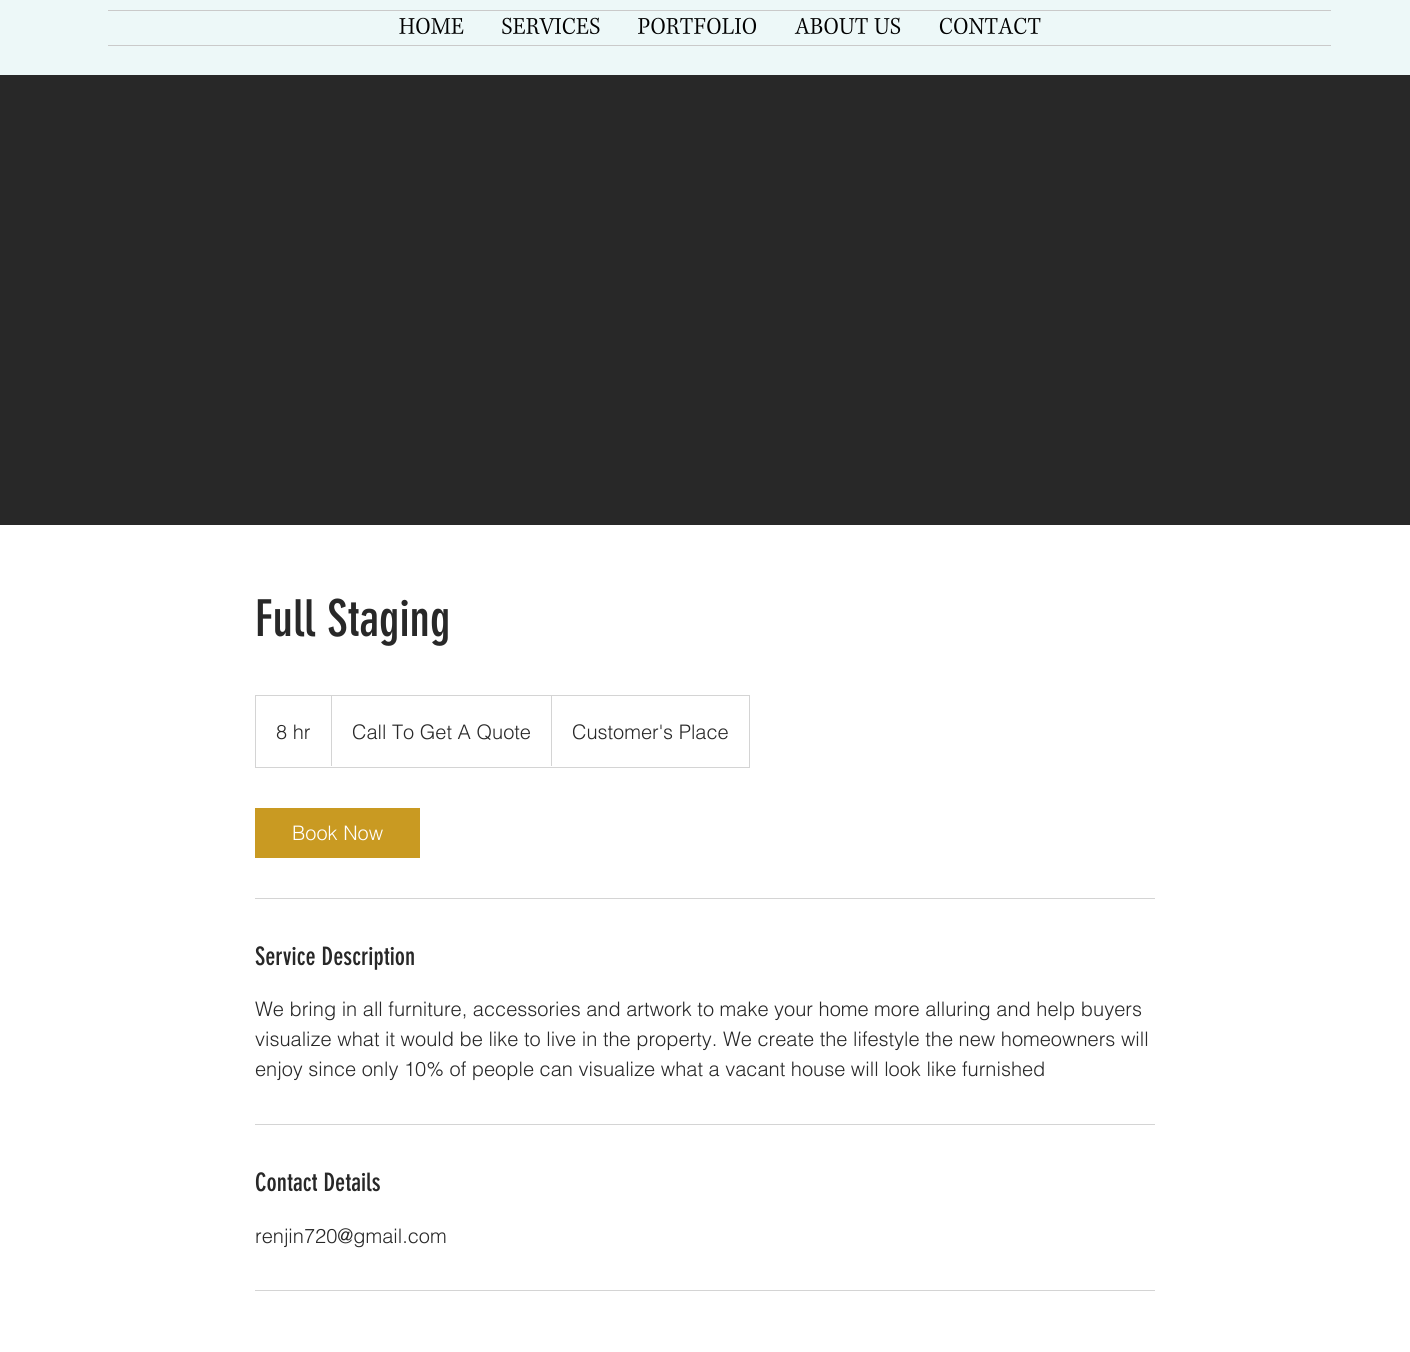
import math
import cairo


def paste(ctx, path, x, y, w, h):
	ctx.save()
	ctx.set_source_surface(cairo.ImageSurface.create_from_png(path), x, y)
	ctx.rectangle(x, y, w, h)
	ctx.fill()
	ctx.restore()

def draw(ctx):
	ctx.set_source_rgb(1, 1, 1)
	ctx.paint()
	ctx.set_source_rgb(0.929, 0.969, 0.969)
	ctx.rectangle(0, 0, 1410, 75)
	ctx.fill()
	ctx.set_source_rgb(0.792, 0.792, 0.792)
	ctx.rectangle(108, 10, 1223, 1)
	ctx.rectangle(108, 45, 1223, 1)
	ctx.fill()
	paste(ctx, 'media/1.png', 399, 17, 65, 18)
	paste(ctx, 'media/2.png', 502, 17, 98, 18)
	paste(ctx, 'media/3.png', 638, 17, 119, 18)
	paste(ctx, 'media/4.png', 794, 17, 107, 18)
	paste(ctx, 'media/5.png', 939, 17, 102, 18)
	ctx.set_source_rgb(0.157, 0.157, 0.157)
	ctx.rectangle(0, 75, 1410, 450)
	ctx.fill()
	ctx.select_font_face('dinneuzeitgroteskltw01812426')
	ctx.set_font_size(50)
	ctx.move_to(255, 636)
	ctx.show_text('Full Staging')
	ctx.rectangle(255.5, 695.5, 494, 72)
	ctx.set_source_rgb(0.831, 0.831, 0.831)
	ctx.set_line_width(1)
	ctx.stroke()
	ctx.select_font_face('helvetica Light')
	ctx.set_font_size(20)
	ctx.set_source_rgb(0.157, 0.157, 0.157)
	ctx.move_to(276, 739)
	ctx.show_text('8 hr')
	ctx.set_source_rgb(0.831, 0.831, 0.831)
	ctx.new_path()
	ctx.move_to(331, 766)
	ctx.line_to(331, 695)
	ctx.line_to(332, 696)
	ctx.line_to(332, 766)
	ctx.close_path()
	ctx.fill()
	ctx.set_source_rgb(0.157, 0.157, 0.157)
	ctx.move_to(352, 739)
	ctx.show_text('Call To Get A Quote')
	ctx.set_source_rgb(0.831, 0.831, 0.831)
	ctx.new_path()
	ctx.move_to(551, 766)
	ctx.line_to(551, 695)
	ctx.line_to(552, 696)
	ctx.line_to(552, 766)
	ctx.close_path()
	ctx.fill()
	ctx.set_source_rgb(0.157, 0.157, 0.157)
	ctx.move_to(572, 739)
	ctx.show_text('Customer\'s Place')
	ctx.set_source_rgb(0.788, 0.604, 0.133)
	ctx.rectangle(255, 808, 165, 50)
	ctx.fill()
	ctx.set_source_rgb(1, 1, 1)
	ctx.move_to(292, 840)
	ctx.show_text('Book Now')
	ctx.set_source_rgb(0.831, 0.831, 0.831)
	ctx.rectangle(255, 898, 900, 1)
	ctx.fill()
	ctx.select_font_face('dinneuzeitgroteskltw01812426')
	ctx.set_font_size(25)
	ctx.set_source_rgb(0.157, 0.157, 0.157)
	ctx.move_to(255, 965)
	ctx.show_text('Service Description')
	ctx.select_font_face('helvetica Light')
	ctx.set_font_size(20)
	for x, y, s in [
		(255, 1016, 'We bring in all furniture, accessories and artwork to make your home more alluring and help buyers'),
		(255, 1046, 'visualize what it would be like to live in the property. We create the lifestyle the new homeowners will'),
		(255, 1076, 'enjoy since only 10% of people can visualize what a vacant house will look like furnished'),
	]:
		ctx.move_to(x, y)
		ctx.show_text(s)
	ctx.set_source_rgb(0.831, 0.831, 0.831)
	ctx.rectangle(255, 1124, 900, 1)
	ctx.fill()
	ctx.select_font_face('dinneuzeitgroteskltw01812426')
	ctx.set_font_size(25)
	ctx.set_source_rgb(0.157, 0.157, 0.157)
	ctx.move_to(255, 1191)
	ctx.show_text('Contact Details')
	ctx.select_font_face('helvetica Light')
	ctx.set_font_size(20)
	ctx.move_to(255, 1243)
	ctx.show_text('renjin720@gmail.com')
	ctx.set_source_rgb(0.831, 0.831, 0.831)
	ctx.rectangle(255, 1290, 900, 1)
	ctx.fill()


surface = cairo.ImageSurface(cairo.FORMAT_RGB24, 1410, 1352)
ctx = cairo.Context(surface)
options = cairo.FontOptions()
options.set_hint_metrics(cairo.HINT_METRICS_OFF)
options.set_hint_style(cairo.HINT_STYLE_NONE)
ctx.set_font_options(options)
ctx.set_miter_limit(4)
draw(ctx)
surface.write_to_png('image.png')
